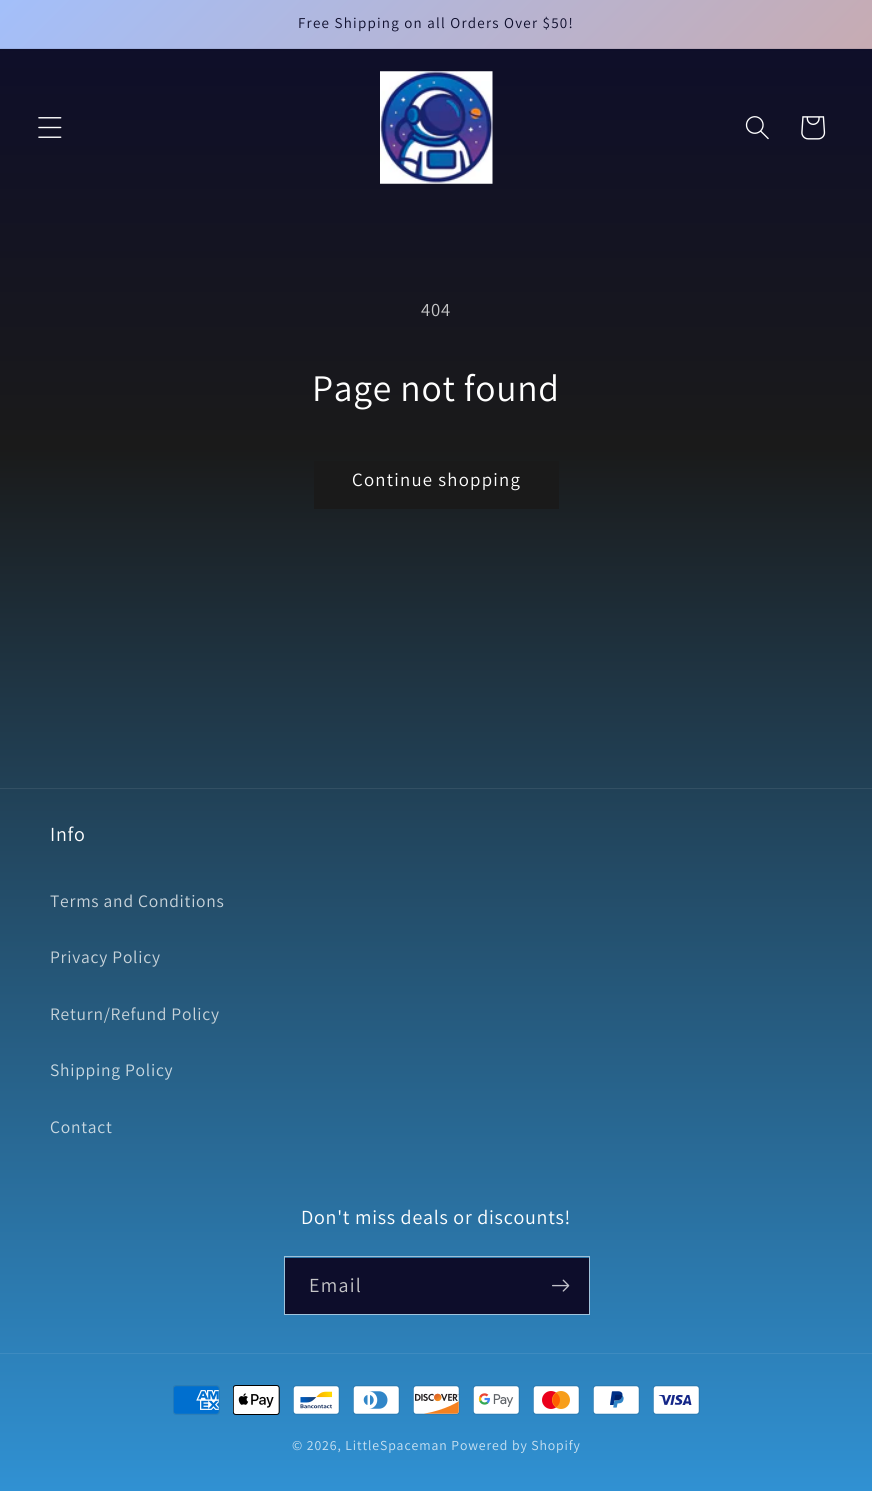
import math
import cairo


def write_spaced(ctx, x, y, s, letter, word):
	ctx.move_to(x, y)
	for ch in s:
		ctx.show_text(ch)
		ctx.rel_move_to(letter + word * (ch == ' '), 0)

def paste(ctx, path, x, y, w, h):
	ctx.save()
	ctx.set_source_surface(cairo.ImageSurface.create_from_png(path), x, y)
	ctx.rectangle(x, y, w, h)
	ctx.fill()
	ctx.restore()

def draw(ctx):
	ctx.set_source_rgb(1, 1, 1)
	ctx.paint()
	gradient = cairo.LinearGradient(436, 0, 436, 1491)
	gradient.add_color_stop_rgba(0, 0.051, 0.051, 0.169, 1)
	gradient.add_color_stop_rgba(0.3, 0.102, 0.102, 0.102, 1)
	gradient.add_color_stop_rgba(1, 0.188, 0.569, 0.827, 1)
	ctx.set_source(gradient)
	ctx.rectangle(0, 49, 872, 1442)
	ctx.fill()
	gradient = cairo.LinearGradient(-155, 155, 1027, 1337)
	gradient.add_color_stop_rgba(0, 0.639, 0.749, 0.98, 1)
	gradient.add_color_stop_rgba(1, 1, 0.549, 0.259, 1)
	gradient.add_color_stop_rgba(1, 0.188, 0.569, 0.827, 1)
	ctx.set_source(gradient)
	ctx.rectangle(0, 0, 872, 48)
	ctx.fill()
	gradient = cairo.LinearGradient(-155, 155, 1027, 1337)
	gradient.add_color_stop_rgba(0, 0.592, 0.694, 0.914, 1)
	gradient.add_color_stop_rgba(1, 0.925, 0.51, 0.251, 1)
	gradient.add_color_stop_rgba(1, 0.176, 0.525, 0.776, 1)
	ctx.set_source(gradient)
	ctx.rectangle(0, 48, 872, 1)
	ctx.fill()
	ctx.select_font_face('Assistant')
	ctx.set_font_size(15)
	ctx.set_source_rgb(0.051, 0.051, 0.169)
	write_spaced(ctx, 298, 28, 'Free Shipping on all Orders Over $50!', 1.25, 0)
	paste(ctx, 'media/1.png', 38, 117, 24, 21)
	paste(ctx, 'media/2.png', 380, 71, 113, 113)
	paste(ctx, 'media/3.png', 745, 116, 24, 24)
	paste(ctx, 'media/4.png', 801, 116, 25, 24)
	ctx.set_font_size(18.75)
	ctx.set_source_rgb(0.773, 0.773, 0.78)
	write_spaced(ctx, 421, 316, '404', 0.75, 0)
	ctx.set_font_size(37.5)
	ctx.set_source_rgb(1, 1, 1)
	write_spaced(ctx, 312, 401, 'Page not found', 0.75, 0)
	ctx.set_source_rgb(0.102, 0.102, 0.102)
	ctx.rectangle(314, 461, 245, 48)
	ctx.fill()
	ctx.set_font_size(18.75)
	ctx.set_source_rgb(1, 1, 1)
	write_spaced(ctx, 352, 486, 'Continue shopping', 1.25, 0)
	ctx.set_source_rgb(0.2, 0.314, 0.392)
	ctx.rectangle(0, 788, 872, 1)
	ctx.fill()
	ctx.set_font_size(20)
	ctx.set_source_rgb(1, 1, 1)
	write_spaced(ctx, 50, 841, 'Info', 0.75, 0)
	ctx.set_font_size(17.5)
	ctx.set_source_rgb(0.784, 0.827, 0.855)
	for x, y, s in [
		(50, 907, 'Terms and Conditions'),
		(50, 963, 'Privacy Policy'),
		(50, 1020, 'Return/Refund Policy'),
	]:
		write_spaced(ctx, x, y, s, 0.75, 0)
	ctx.set_source_rgb(0.788, 0.847, 0.882)
	write_spaced(ctx, 50, 1076, 'Shipping Policy', 0.75, 0)
	write_spaced(ctx, 50, 1133, 'Contact', 0.75, 0)
	ctx.set_font_size(20)
	ctx.set_source_rgb(1, 1, 1)
	write_spaced(ctx, 301, 1224, 'Don\'t miss deals or discounts!', 0.75, 0)
	ctx.set_source_rgb(0.051, 0.051, 0.169)
	ctx.rectangle(285, 1258, 304, 56)
	ctx.fill()
	ctx.rectangle(284.5, 1256.5, 305, 58)
	ctx.set_source_rgba(1, 1, 1, 0.55)
	ctx.set_line_width(1)
	ctx.stroke()
	ctx.set_source_rgb(0.773, 0.773, 0.78)
	write_spaced(ctx, 309, 1292, 'Email', 1.25, 0)
	paste(ctx, 'media/5.png', 552, 1279, 18, 13)
	ctx.set_source_rgb(0.243, 0.545, 0.753)
	ctx.rectangle(0, 1353, 872, 1)
	ctx.fill()
	paste(ctx, 'media/6.png', 173, 1385, 47, 30)
	paste(ctx, 'media/7.png', 233, 1385, 47, 30)
	paste(ctx, 'media/8.png', 293, 1385, 47, 30)
	paste(ctx, 'media/9.png', 353, 1385, 47, 30)
	paste(ctx, 'media/10.png', 413, 1385, 47, 30)
	paste(ctx, 'media/11.png', 473, 1385, 47, 30)
	paste(ctx, 'media/12.png', 533, 1385, 47, 30)
	paste(ctx, 'media/13.png', 593, 1385, 47, 30)
	paste(ctx, 'media/14.png', 653, 1385, 47, 30)
	ctx.set_font_size(13.75)
	ctx.set_source_rgb(0.796, 0.886, 0.949)
	write_spaced(ctx, 292, 1450, '© 2026, LittleSpaceman Powered by Shopify', 0.9, 0)


surface = cairo.ImageSurface(cairo.FORMAT_RGB24, 872, 1491)
ctx = cairo.Context(surface)
options = cairo.FontOptions()
options.set_hint_metrics(cairo.HINT_METRICS_OFF)
options.set_hint_style(cairo.HINT_STYLE_NONE)
ctx.set_font_options(options)
ctx.set_miter_limit(4)
draw(ctx)
surface.write_to_png('image.png')
